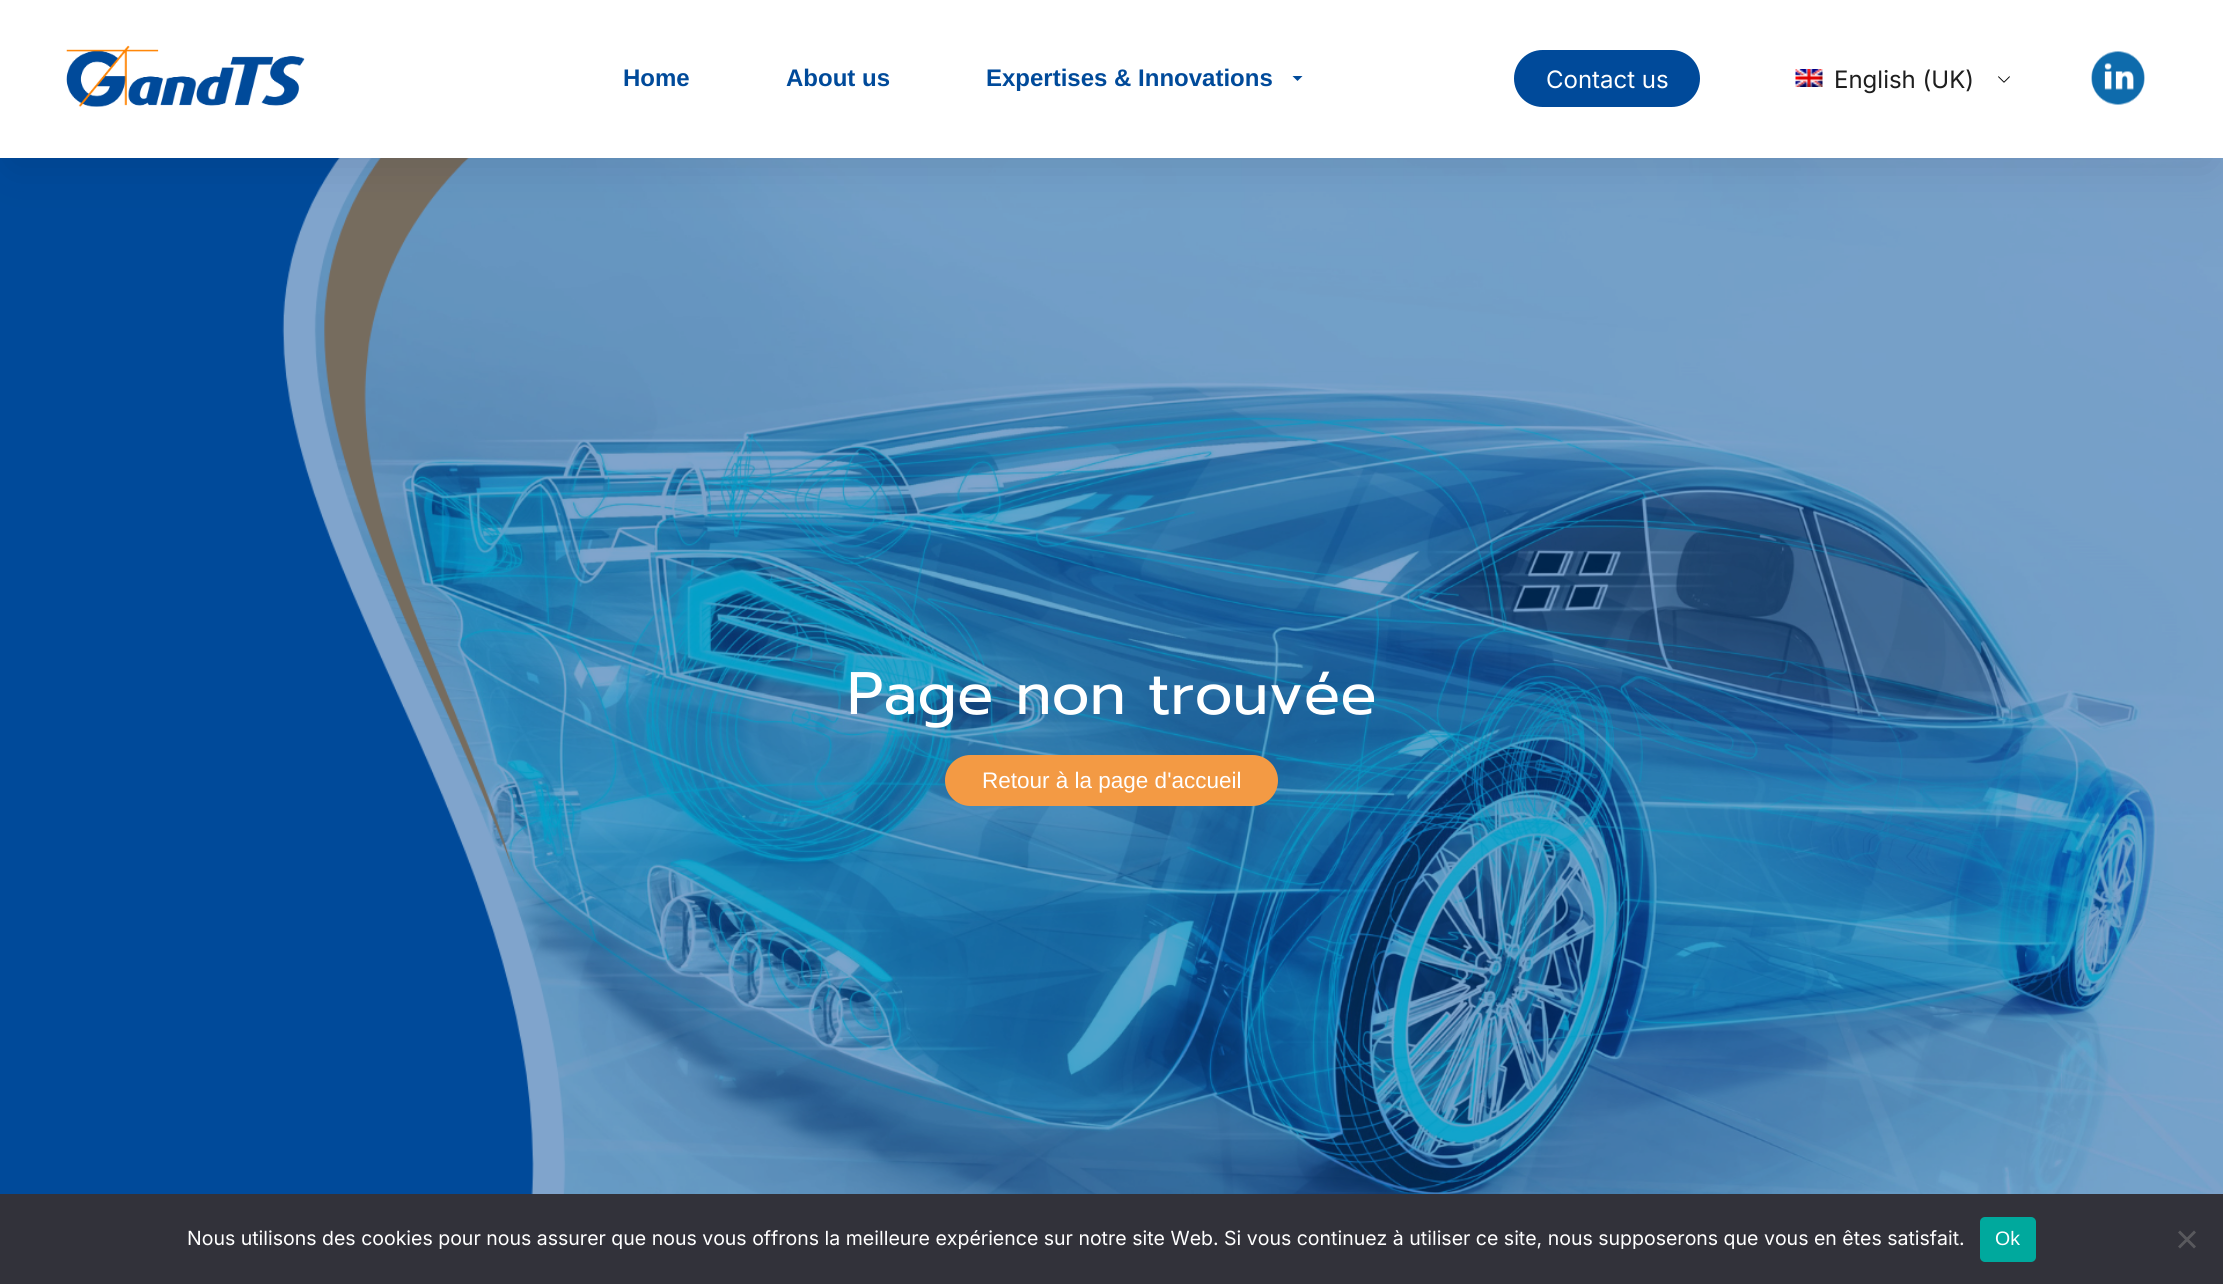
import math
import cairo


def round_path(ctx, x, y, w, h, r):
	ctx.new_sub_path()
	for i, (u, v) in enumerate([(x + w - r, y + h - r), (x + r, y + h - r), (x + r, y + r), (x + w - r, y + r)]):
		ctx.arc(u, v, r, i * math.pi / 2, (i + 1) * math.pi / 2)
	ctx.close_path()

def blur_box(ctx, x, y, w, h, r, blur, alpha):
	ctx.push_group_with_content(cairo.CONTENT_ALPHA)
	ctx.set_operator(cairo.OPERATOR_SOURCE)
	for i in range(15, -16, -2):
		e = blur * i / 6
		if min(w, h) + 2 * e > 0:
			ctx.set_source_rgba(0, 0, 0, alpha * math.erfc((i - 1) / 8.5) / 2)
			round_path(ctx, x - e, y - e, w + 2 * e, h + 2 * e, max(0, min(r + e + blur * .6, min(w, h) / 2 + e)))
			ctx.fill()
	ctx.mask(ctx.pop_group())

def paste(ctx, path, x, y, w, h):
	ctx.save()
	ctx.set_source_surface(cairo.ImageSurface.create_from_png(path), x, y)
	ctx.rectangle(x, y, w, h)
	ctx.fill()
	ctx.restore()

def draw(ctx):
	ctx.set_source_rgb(1, 1, 1)
	ctx.paint()
	paste(ctx, 'media/5.png', 0, 158, 2223, 1036)
	ctx.set_source_rgb(0, 0, 0.141)
	blur_box(ctx, 12, 30, 2199, 134, 0, 24, 0.12)
	ctx.set_source_rgb(1, 1, 1)
	ctx.rectangle(0, 0, 2223, 158)
	ctx.fill()
	paste(ctx, 'media/1.png', 66, 45, 239, 62)
	ctx.select_font_face('Liberation Sans', cairo.FONT_SLANT_NORMAL, cairo.FONT_WEIGHT_BOLD)
	ctx.set_font_size(24)
	ctx.set_source_rgb(0, 0.29, 0.604)
	for x, y, s in [
		(623, 86, 'Home'),
		(786, 86, 'About us'),
		(986, 86, 'Expertises & Innovations'),
	]:
		ctx.move_to(x, y)
		ctx.show_text(s)
	ctx.new_path()
	ctx.move_to(1297.5, 81)
	ctx.line_to(1292.5, 76)
	ctx.line_to(1302.5, 76)
	ctx.close_path()
	ctx.fill()
	round_path(ctx, 1515, 51, 184, 55, 27.5)
	ctx.fill_preserve()
	ctx.stroke()
	ctx.select_font_face('Inter')
	ctx.set_source_rgb(1, 1, 1)
	ctx.move_to(1546, 88)
	ctx.show_text('Contact us')
	paste(ctx, 'media/2.png', 1998, 76, 12, 7)
	paste(ctx, 'media/3.png', 1795, 69, 28, 18)
	ctx.set_source_rgb(0.118, 0.118, 0.118)
	ctx.move_to(1834, 88)
	ctx.show_text('English (UK)')
	paste(ctx, 'media/4.png', 2091, 51, 54, 54)
	ctx.select_font_face('Prompt')
	ctx.set_font_size(60)
	ctx.set_source_rgb(1, 1, 1)
	ctx.move_to(847, 714)
	ctx.show_text('Page non trouvée')
	ctx.set_source_rgb(0.953, 0.604, 0.267)
	round_path(ctx, 946.5, 756.5, 330, 48, 24)
	ctx.fill_preserve()
	ctx.set_line_width(3)
	ctx.stroke()
	ctx.select_font_face('Liberation Sans')
	ctx.set_font_size(22.5)
	ctx.set_source_rgb(1, 1, 1)
	ctx.move_to(982, 788)
	ctx.show_text('Retour à la page d\'accueil')
	ctx.set_source_rgb(0.196, 0.196, 0.227)
	ctx.rectangle(0, 1194, 2223, 90)
	ctx.fill()
	ctx.select_font_face('Inter')
	ctx.set_font_size(19.5)
	ctx.set_source_rgb(1, 1, 1)
	ctx.move_to(187, 1245)
	ctx.show_text('Nous utilisons des cookies pour nous assurer que nous vous offrons la meilleure expérience sur notre site Web. Si vous continuez à utiliser ce site, nous supposerons que vous en êtes satisfait.')
	ctx.set_source_rgb(0, 0.663, 0.616)
	round_path(ctx, 1980, 1217, 56, 45, 5)
	ctx.fill()
	ctx.select_font_face('Liberation Sans')
	ctx.set_source_rgb(1, 1, 1)
	ctx.move_to(1995, 1245)
	ctx.show_text('Ok')
	ctx.set_source_rgb(0.349, 0.349, 0.365)
	ctx.new_path()
	ctx.move_to(2194, 1230.5)
	ctx.line_to(2196, 1232.5)
	ctx.line_to(2180, 1248.5)
	ctx.line_to(2178, 1246.5)
	ctx.close_path()
	ctx.fill()
	ctx.new_path()
	ctx.move_to(2178, 1232.5)
	ctx.line_to(2180, 1230.5)
	ctx.line_to(2196, 1246.5)
	ctx.line_to(2194, 1248.5)
	ctx.close_path()
	ctx.fill()


surface = cairo.ImageSurface(cairo.FORMAT_RGB24, 2223, 1284)
ctx = cairo.Context(surface)
options = cairo.FontOptions()
options.set_hint_metrics(cairo.HINT_METRICS_OFF)
options.set_hint_style(cairo.HINT_STYLE_NONE)
ctx.set_font_options(options)
ctx.set_miter_limit(4)
draw(ctx)
surface.write_to_png('image.png')
